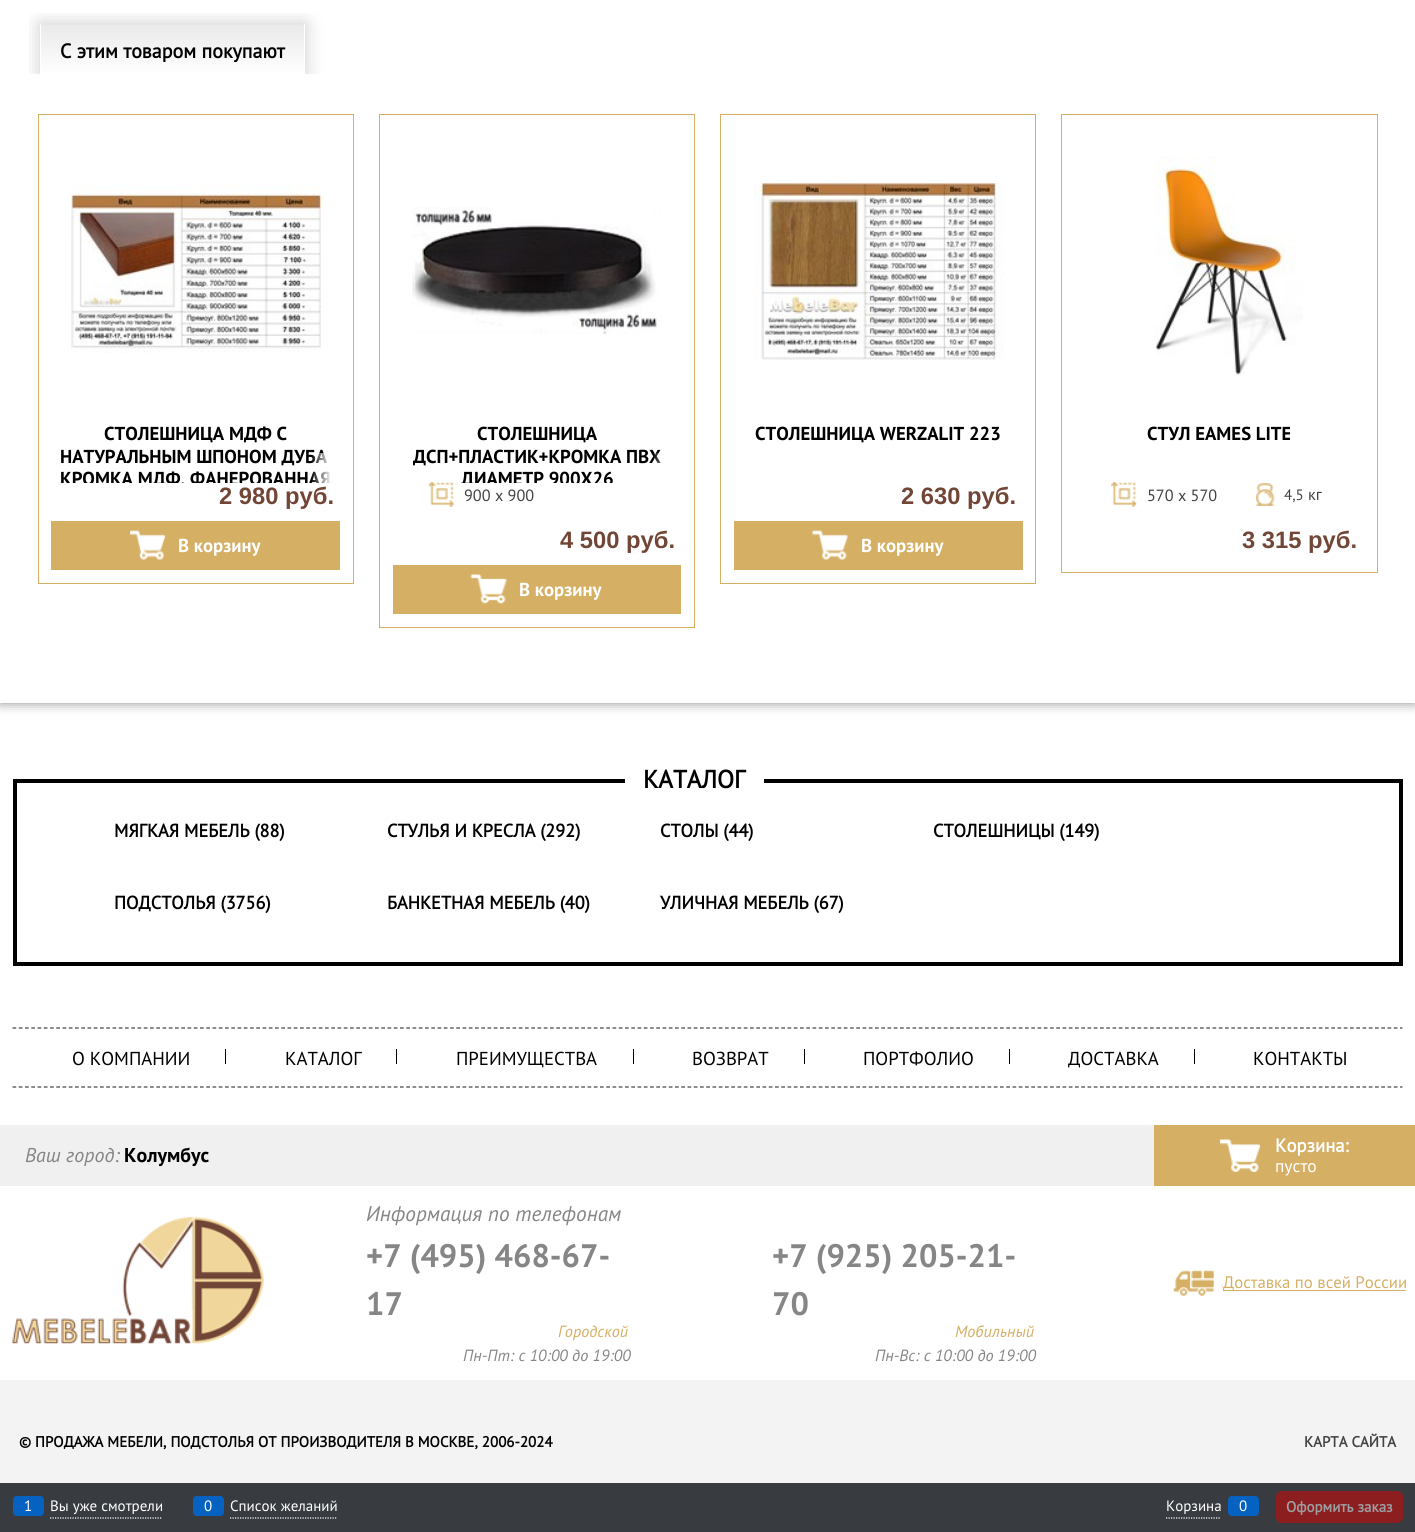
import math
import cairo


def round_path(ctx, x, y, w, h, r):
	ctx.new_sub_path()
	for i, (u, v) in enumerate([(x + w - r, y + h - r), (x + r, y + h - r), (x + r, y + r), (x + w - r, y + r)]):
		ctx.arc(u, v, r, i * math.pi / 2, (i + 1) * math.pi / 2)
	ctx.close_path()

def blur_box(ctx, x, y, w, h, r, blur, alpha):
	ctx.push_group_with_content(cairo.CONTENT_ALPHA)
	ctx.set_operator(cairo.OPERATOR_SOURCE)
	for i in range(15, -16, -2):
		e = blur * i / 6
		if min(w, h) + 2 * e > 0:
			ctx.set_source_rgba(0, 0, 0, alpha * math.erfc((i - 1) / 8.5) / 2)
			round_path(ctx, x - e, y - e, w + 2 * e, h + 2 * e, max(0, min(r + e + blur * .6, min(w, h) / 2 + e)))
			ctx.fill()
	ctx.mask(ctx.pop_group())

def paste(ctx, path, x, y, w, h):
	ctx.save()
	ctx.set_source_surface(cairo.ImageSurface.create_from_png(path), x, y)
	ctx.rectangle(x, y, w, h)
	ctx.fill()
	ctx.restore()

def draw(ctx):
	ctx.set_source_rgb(1, 1, 1)
	ctx.paint()
	ctx.set_source_rgb(0.549, 0.549, 0.549)
	blur_box(ctx, 0, -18, 1415, 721, 0, 6, 1)
	ctx.set_source_rgb(1, 1, 1)
	ctx.rectangle(0, 0, 1415, 703)
	ctx.fill()
	ctx.save()
	ctx.rectangle(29, 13, 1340, 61)
	ctx.clip()
	ctx.set_source_rgb(0.8, 0.8, 0.8)
	blur_box(ctx, 40, 24, 265, 51, 0, 9.5, 1)
	ctx.restore()
	gradient = cairo.LinearGradient(173, 25, 173, 75)
	gradient.add_color_stop_rgba(0, 0.918, 0.918, 0.918, 1)
	gradient.add_color_stop_rgba(1, 1, 1, 1, 1)
	ctx.set_source(gradient)
	ctx.rectangle(41, 25, 263, 49)
	ctx.fill()
	ctx.set_source_rgb(1, 1, 1)
	ctx.rectangle(304, 24, 1, 50)
	ctx.fill()
	ctx.rectangle(40, 24, 1, 50)
	ctx.fill()
	ctx.select_font_face('PT Sans', cairo.FONT_SLANT_NORMAL, cairo.FONT_WEIGHT_BOLD)
	ctx.set_font_size(20)
	ctx.set_source_rgb(0, 0, 0)
	ctx.move_to(60, 58)
	ctx.show_text('С этим товаром покупают')
	ctx.rectangle(38.5, 114.5, 315, 469)
	ctx.set_source_rgb(0.835, 0.686, 0.392)
	ctx.set_line_width(1)
	ctx.stroke()
	paste(ctx, 'media/1.png', 71, 183, 250, 170)
	ctx.select_font_face('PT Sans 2', cairo.FONT_SLANT_NORMAL, cairo.FONT_WEIGHT_BOLD)
	ctx.set_font_size(18.75)
	ctx.set_source_rgb(0, 0, 0)
	ctx.move_to(104, 440)
	ctx.show_text('СТОЛЕШНИЦА МДФ С')
	ctx.move_to(60, 463)
	ctx.show_text('НАТУРАЛЬНЫМ ШПОНОМ ДУБА')
	ctx.save()
	ctx.rectangle(51, 423, 289, 60)
	ctx.clip()
	ctx.move_to(60, 485)
	ctx.show_text('КРОМКА МДФ, ФАНЕРОВАННАЯ')
	ctx.restore()
	gradient = cairo.LinearGradient(311, 468, 340, 468)
	gradient.add_color_stop_rgba(0, 1, 1, 1, 0)
	gradient.add_color_stop_rgba(0.7, 1, 1, 1, 1)
	ctx.set_source(gradient)
	ctx.rectangle(311, 453, 19, 30)
	ctx.fill()
	ctx.select_font_face('Liberation Sans', cairo.FONT_SLANT_NORMAL, cairo.FONT_WEIGHT_BOLD)
	ctx.set_font_size(23.75)
	ctx.set_source_rgb(0.447, 0.275, 0.216)
	ctx.move_to(219, 504)
	ctx.show_text('2 980 руб.')
	ctx.set_source_rgb(0.835, 0.686, 0.392)
	ctx.rectangle(51, 521, 289, 49)
	ctx.fill()
	paste(ctx, 'media/2.png', 130, 530, 36, 30)
	ctx.select_font_face('PT Sans 2', cairo.FONT_SLANT_NORMAL, cairo.FONT_WEIGHT_BOLD)
	ctx.set_font_size(18.75)
	ctx.set_source_rgb(1, 1, 1)
	ctx.move_to(178, 552)
	ctx.show_text('В корзину')
	ctx.rectangle(379.5, 114.5, 315, 513)
	ctx.set_source_rgb(0.835, 0.686, 0.392)
	ctx.stroke()
	paste(ctx, 'media/3.png', 412, 207, 250, 128)
	ctx.set_source_rgb(0, 0, 0)
	ctx.move_to(477, 440)
	ctx.show_text('СТОЛЕШНИЦА')
	ctx.move_to(413, 463)
	ctx.show_text('ДСП+ПЛАСТИК+КРОМКА ПВХ')
	ctx.save()
	ctx.rectangle(393, 423, 288, 60)
	ctx.clip()
	ctx.move_to(461, 485)
	ctx.show_text('ДИАМЕТР 900Х26')
	ctx.restore()
	gradient = cairo.LinearGradient(653, 468, 681, 468)
	gradient.add_color_stop_rgba(0, 1, 1, 1, 0)
	gradient.add_color_stop_rgba(0.7, 1, 1, 1, 1)
	ctx.set_source(gradient)
	ctx.rectangle(653, 453, 8, 10)
	ctx.fill()
	paste(ctx, 'media/4.png', 428, 482, 26, 25)
	ctx.select_font_face('PT Sans')
	ctx.set_font_size(16.25)
	ctx.set_source_rgb(0.263, 0.255, 0.259)
	ctx.move_to(464, 501)
	ctx.show_text('900 x 900')
	ctx.select_font_face('Liberation Sans', cairo.FONT_SLANT_NORMAL, cairo.FONT_WEIGHT_BOLD)
	ctx.set_font_size(23.75)
	ctx.set_source_rgb(0.447, 0.275, 0.216)
	ctx.move_to(560, 548)
	ctx.show_text('4 500 руб.')
	ctx.set_source_rgb(0.835, 0.686, 0.392)
	ctx.rectangle(393, 565, 288, 49)
	ctx.fill()
	paste(ctx, 'media/5.png', 470, 574, 37, 30)
	ctx.select_font_face('PT Sans 2', cairo.FONT_SLANT_NORMAL, cairo.FONT_WEIGHT_BOLD)
	ctx.set_font_size(18.75)
	ctx.set_source_rgb(1, 1, 1)
	ctx.move_to(519, 596)
	ctx.show_text('В корзину')
	ctx.rectangle(720.5, 114.5, 315, 469)
	ctx.set_source_rgb(0.835, 0.686, 0.392)
	ctx.stroke()
	paste(ctx, 'media/6.png', 754, 183, 250, 177)
	ctx.set_source_rgb(0, 0, 0)
	ctx.move_to(755, 440)
	ctx.show_text('СТОЛЕШНИЦА WERZALIT 223')
	ctx.select_font_face('Liberation Sans', cairo.FONT_SLANT_NORMAL, cairo.FONT_WEIGHT_BOLD)
	ctx.set_font_size(23.75)
	ctx.set_source_rgb(0.447, 0.275, 0.216)
	ctx.move_to(901, 504)
	ctx.show_text('2 630 руб.')
	ctx.set_source_rgb(0.835, 0.686, 0.392)
	ctx.rectangle(734, 521, 289, 49)
	ctx.fill()
	paste(ctx, 'media/7.png', 812, 530, 36, 30)
	ctx.select_font_face('PT Sans 2', cairo.FONT_SLANT_NORMAL, cairo.FONT_WEIGHT_BOLD)
	ctx.set_font_size(18.75)
	ctx.set_source_rgb(1, 1, 1)
	ctx.move_to(861, 552)
	ctx.show_text('В корзину')
	ctx.rectangle(1061.5, 114.5, 316, 458)
	ctx.set_source_rgb(0.835, 0.686, 0.392)
	ctx.stroke()
	paste(ctx, 'media/8.png', 1154, 156, 149, 219)
	ctx.set_source_rgb(0, 0, 0)
	ctx.move_to(1147, 440)
	ctx.show_text('CТУЛ EAMES LITE')
	paste(ctx, 'media/9.png', 1111, 482, 26, 25)
	ctx.select_font_face('PT Sans')
	ctx.set_font_size(16.25)
	ctx.set_source_rgb(0.263, 0.255, 0.259)
	ctx.move_to(1147, 501)
	ctx.show_text('570 x 570')
	paste(ctx, 'media/10.png', 1256, 483, 19, 23)
	ctx.set_font_size(15)
	ctx.move_to(1284, 500)
	ctx.show_text('4,5')
	ctx.set_font_size(16.25)
	ctx.move_to(1308, 500)
	ctx.show_text('кг')
	ctx.select_font_face('Liberation Sans', cairo.FONT_SLANT_NORMAL, cairo.FONT_WEIGHT_BOLD)
	ctx.set_font_size(23.75)
	ctx.set_source_rgb(0.447, 0.275, 0.216)
	ctx.move_to(1242, 548)
	ctx.show_text('3 315 руб.')
	ctx.rectangle(15, 781, 1386, 183)
	ctx.set_source_rgb(0, 0, 0)
	ctx.set_line_width(4)
	ctx.stroke()
	ctx.set_source_rgb(1, 1, 1)
	ctx.rectangle(625, 779, 139, 4)
	ctx.fill()
	ctx.select_font_face('PT Sans', cairo.FONT_SLANT_NORMAL, cairo.FONT_WEIGHT_BOLD)
	ctx.set_font_size(25)
	ctx.set_source_rgb(0, 0, 0)
	ctx.move_to(643, 788)
	ctx.show_text('КАТАЛОГ')
	ctx.set_font_size(18.25)
	for x, y, s in [
		(114, 837, 'МЯГКАЯ МЕБЕЛЬ (88)'),
		(387, 837, 'СТУЛЬЯ И КРЕСЛА (292)'),
		(660, 837, 'СТОЛЫ (44)'),
		(933, 837, 'СТОЛЕШНИЦЫ (149)'),
		(114, 909, 'ПОДСТОЛЬЯ (3756)'),
		(387, 909, 'БАНКЕТНАЯ МЕБЕЛЬ (40)'),
		(660, 909, 'УЛИЧНАЯ МЕБЕЛЬ (67)'),
	]:
		ctx.move_to(x, y)
		ctx.show_text(s)
	ctx.new_path()
	ctx.move_to(12.5, 1028)
	ctx.line_to(1402.5, 1028)
	ctx.set_source_rgb(0.263, 0.255, 0.259)
	ctx.set_line_width(1.2)
	ctx.set_dash([3.75, 2.5])
	ctx.stroke()
	ctx.new_path()
	ctx.move_to(12.5, 1087)
	ctx.line_to(1402.5, 1087)
	ctx.stroke()
	ctx.select_font_face('PT Sans')
	ctx.set_font_size(18.75)
	ctx.set_source_rgb(0, 0, 0)
	ctx.move_to(72, 1065)
	ctx.show_text('О КОМПАНИИ')
	ctx.rectangle(225, 1049, 1, 15)
	ctx.fill()
	ctx.move_to(285, 1065)
	ctx.show_text('КАТАЛОГ')
	ctx.rectangle(396, 1049, 1, 15)
	ctx.fill()
	ctx.move_to(456, 1065)
	ctx.show_text('ПРЕИМУЩЕСТВА')
	ctx.rectangle(633, 1049, 1, 15)
	ctx.fill()
	ctx.move_to(692, 1065)
	ctx.show_text('ВОЗВРАТ')
	ctx.rectangle(804, 1049, 1, 15)
	ctx.fill()
	ctx.move_to(863, 1065)
	ctx.show_text('ПОРТФОЛИО')
	ctx.rectangle(1009, 1049, 1, 15)
	ctx.fill()
	ctx.move_to(1068, 1065)
	ctx.show_text('ДОСТАВКА')
	ctx.rectangle(1194, 1049, 1, 15)
	ctx.fill()
	ctx.move_to(1253, 1065)
	ctx.show_text('КОНТАКТЫ')
	ctx.set_source_rgb(0.941, 0.941, 0.941)
	ctx.rectangle(0, 1125, 1154, 61)
	ctx.fill()
	ctx.select_font_face('PT Sans', cairo.FONT_SLANT_ITALIC)
	ctx.set_font_size(20)
	ctx.set_source_rgb(0.525, 0.525, 0.525)
	ctx.move_to(25, 1162)
	ctx.show_text('Ваш город:')
	ctx.select_font_face('PT Sans 2', cairo.FONT_SLANT_NORMAL, cairo.FONT_WEIGHT_BOLD)
	ctx.set_source_rgb(0, 0, 0)
	ctx.move_to(124, 1162)
	ctx.show_text('Колумбус')
	ctx.set_source_rgb(0.835, 0.686, 0.392)
	ctx.rectangle(1154, 1125, 261, 61)
	ctx.fill()
	paste(ctx, 'media/11.png', 1220, 1139, 40, 33)
	ctx.select_font_face('PT Sans', cairo.FONT_SLANT_NORMAL, cairo.FONT_WEIGHT_BOLD)
	ctx.set_font_size(18.75)
	ctx.set_source_rgb(1, 1, 1)
	ctx.move_to(1275, 1152)
	ctx.show_text('Корзина:')
	ctx.select_font_face('PT Sans')
	ctx.set_font_size(17.5)
	ctx.move_to(1275, 1172)
	ctx.show_text('пусто')
	paste(ctx, 'media/12.png', 12, 1216, 252, 128)
	ctx.select_font_face('PT Sans', cairo.FONT_SLANT_ITALIC)
	ctx.set_font_size(21.25)
	ctx.set_source_rgb(0.525, 0.525, 0.525)
	ctx.move_to(366, 1221)
	ctx.show_text('Информация по телефонам')
	ctx.select_font_face('PT Sans 2', cairo.FONT_SLANT_NORMAL, cairo.FONT_WEIGHT_BOLD)
	ctx.set_font_size(32.5)
	ctx.move_to(366, 1267)
	ctx.show_text('+7 (495) 468-67-')
	ctx.move_to(366, 1315)
	ctx.show_text('17')
	ctx.select_font_face('PT Sans', cairo.FONT_SLANT_ITALIC)
	ctx.set_font_size(16.25)
	ctx.set_source_rgb(0.835, 0.686, 0.392)
	ctx.move_to(558, 1337)
	ctx.show_text('Городской')
	ctx.set_source_rgb(0.525, 0.525, 0.525)
	ctx.move_to(463, 1361)
	ctx.show_text('Пн-Пт: с 10:00 до 19:00')
	ctx.select_font_face('PT Sans 2', cairo.FONT_SLANT_NORMAL, cairo.FONT_WEIGHT_BOLD)
	ctx.set_font_size(32.5)
	ctx.move_to(772, 1267)
	ctx.show_text('+7 (925) 205-21-')
	ctx.move_to(772, 1315)
	ctx.show_text('70')
	ctx.select_font_face('PT Sans', cairo.FONT_SLANT_ITALIC)
	ctx.set_font_size(16.25)
	ctx.set_source_rgb(0.835, 0.686, 0.392)
	ctx.move_to(955, 1337)
	ctx.show_text('Мобильный')
	ctx.set_source_rgb(0.525, 0.525, 0.525)
	ctx.move_to(875, 1361)
	ctx.show_text('Пн-Вс: с 10:00 до 19:00')
	paste(ctx, 'media/13.png', 1173, 1270, 50, 26)
	ctx.set_source_rgb(0.835, 0.686, 0.392)
	ctx.rectangle(1223, 1290, 183, 1)
	ctx.fill()
	ctx.select_font_face('PT Sans')
	ctx.set_font_size(16.75)
	ctx.move_to(1223, 1288)
	ctx.show_text('Доставка по всей России')
	ctx.set_source_rgb(0.953, 0.953, 0.953)
	ctx.rectangle(0, 1380, 1415, 103)
	ctx.fill()
	ctx.select_font_face('PT Sans', cairo.FONT_SLANT_NORMAL, cairo.FONT_WEIGHT_BOLD)
	ctx.set_font_size(15)
	ctx.set_source_rgb(0, 0, 0)
	ctx.move_to(19, 1447)
	ctx.show_text('© ПРОДАЖА МЕБЕЛИ, ПОДСТОЛЬЯ ОТ ПРОИЗВОДИТЕЛЯ В МОСКВЕ, 2006-2024')
	ctx.set_source_rgb(0.263, 0.255, 0.259)
	ctx.move_to(1304, 1447)
	ctx.show_text('КАРТА САЙТА')
	ctx.set_source_rgb(0.22, 0.235, 0.251)
	ctx.rectangle(0, 1483, 1415, 49)
	ctx.fill()
	ctx.new_path()
	ctx.move_to(50, 1518)
	ctx.line_to(162.5, 1518)
	ctx.set_source_rgb(1, 1, 1)
	ctx.set_dash([1.25, 1.25])
	ctx.stroke()
	ctx.set_source_rgb(0.024, 0.384, 0.757)
	round_path(ctx, 13, 1496, 31, 20, 4)
	ctx.fill()
	ctx.select_font_face('PT Sans')
	ctx.set_source_rgb(1, 1, 1)
	ctx.move_to(24, 1511)
	ctx.show_text('1')
	ctx.move_to(50, 1511)
	ctx.show_text('Вы уже смотрели')
	ctx.new_path()
	ctx.move_to(230, 1518)
	ctx.line_to(337.5, 1518)
	ctx.stroke()
	ctx.set_source_rgb(0.024, 0.384, 0.757)
	round_path(ctx, 193, 1496, 31, 20, 4)
	ctx.fill()
	ctx.set_source_rgb(1, 1, 1)
	ctx.move_to(204, 1511)
	ctx.show_text('0')
	ctx.move_to(230, 1511)
	ctx.show_text('Список желаний')
	ctx.new_path()
	ctx.move_to(1166, 1518)
	ctx.line_to(1221, 1518)
	ctx.stroke()
	ctx.move_to(1166, 1511)
	ctx.show_text('Корзина')
	ctx.set_source_rgb(0.024, 0.384, 0.757)
	round_path(ctx, 1228, 1496, 31, 20, 4)
	ctx.fill()
	ctx.set_source_rgb(1, 1, 1)
	ctx.move_to(1239, 1511)
	ctx.show_text('0')
	ctx.set_source_rgb(0.553, 0.118, 0.125)
	round_path(ctx, 1276, 1491, 127, 32, 6)
	ctx.fill()
	ctx.select_font_face('PT Sans', cairo.FONT_SLANT_NORMAL, cairo.FONT_WEIGHT_BOLD)
	ctx.set_source_rgb(0.612, 0.62, 0.627)
	ctx.move_to(1286, 1512)
	ctx.show_text('Оформить заказ')


surface = cairo.ImageSurface(cairo.FORMAT_RGB24, 1415, 1532)
ctx = cairo.Context(surface)
options = cairo.FontOptions()
options.set_hint_metrics(cairo.HINT_METRICS_OFF)
options.set_hint_style(cairo.HINT_STYLE_NONE)
ctx.set_font_options(options)
ctx.set_miter_limit(4)
draw(ctx)
surface.write_to_png('image.png')
